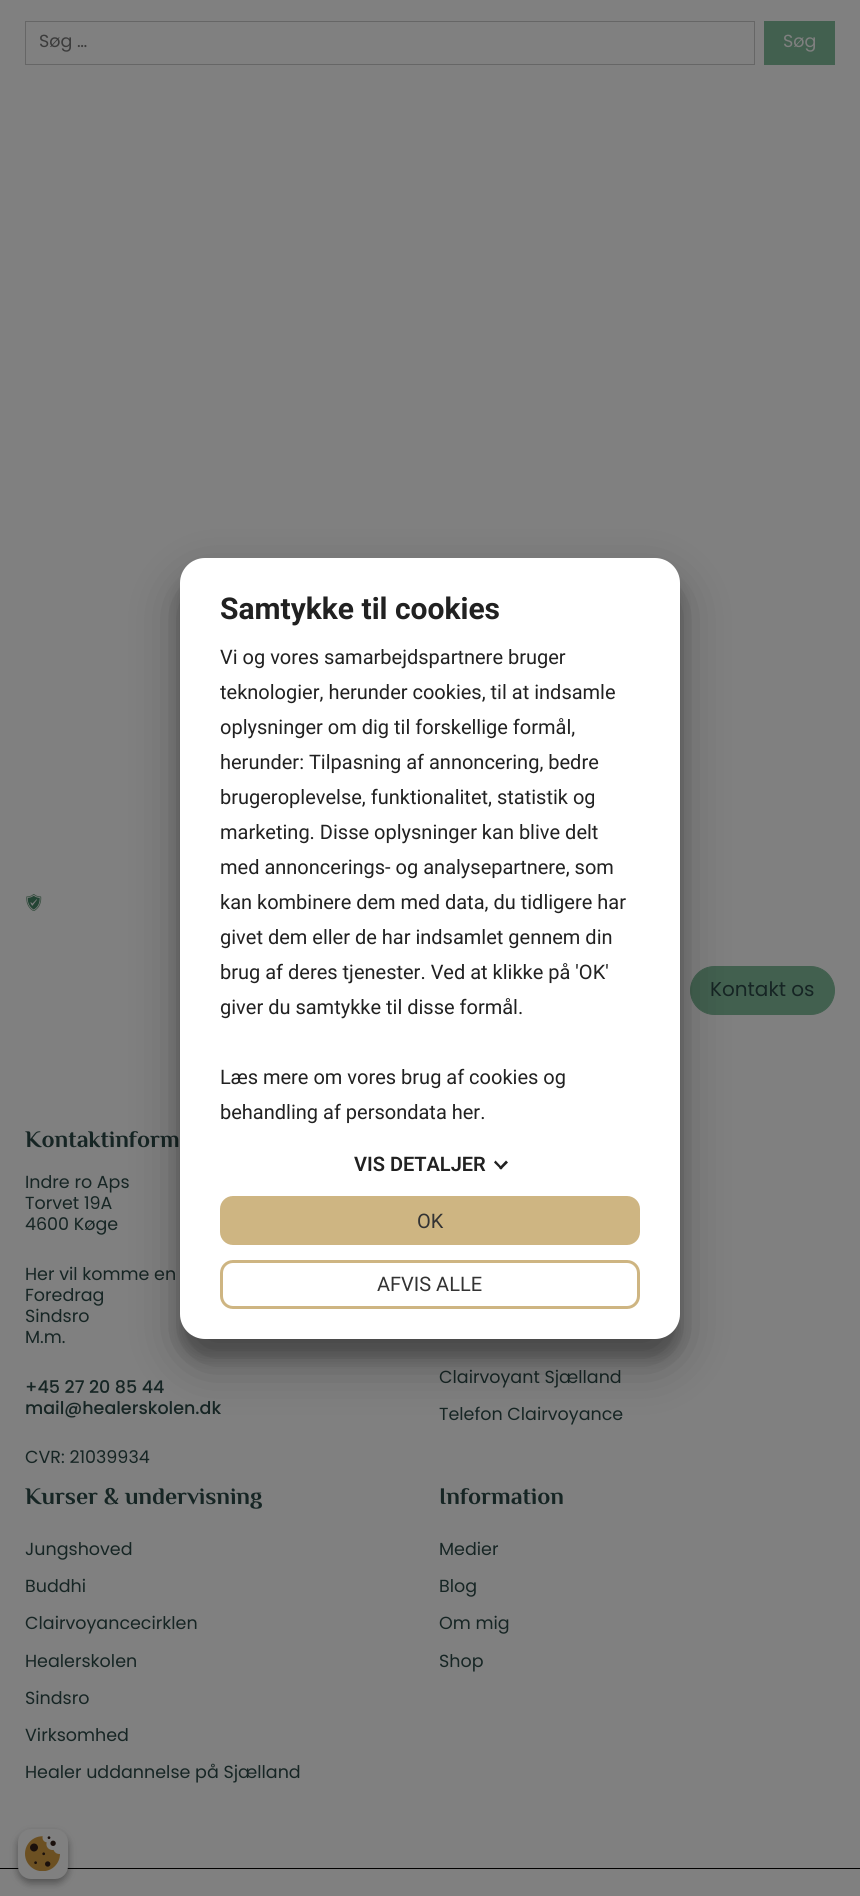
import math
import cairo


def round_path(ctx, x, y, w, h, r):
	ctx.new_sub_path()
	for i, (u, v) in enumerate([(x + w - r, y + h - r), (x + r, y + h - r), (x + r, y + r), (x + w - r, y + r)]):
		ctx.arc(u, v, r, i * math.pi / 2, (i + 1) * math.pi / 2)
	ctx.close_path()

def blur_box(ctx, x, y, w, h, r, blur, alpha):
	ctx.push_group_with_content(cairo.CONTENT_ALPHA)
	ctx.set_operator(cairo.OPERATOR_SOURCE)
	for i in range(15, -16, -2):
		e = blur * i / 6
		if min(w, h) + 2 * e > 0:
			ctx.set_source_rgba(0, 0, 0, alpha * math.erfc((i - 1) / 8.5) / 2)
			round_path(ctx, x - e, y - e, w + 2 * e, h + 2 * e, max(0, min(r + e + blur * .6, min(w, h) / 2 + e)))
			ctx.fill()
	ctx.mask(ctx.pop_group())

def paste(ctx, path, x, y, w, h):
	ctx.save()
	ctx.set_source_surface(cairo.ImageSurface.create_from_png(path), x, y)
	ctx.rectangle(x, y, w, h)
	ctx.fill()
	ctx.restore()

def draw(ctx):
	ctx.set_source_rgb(0.502, 0.502, 0.502)
	ctx.paint()
	ctx.rectangle(25.5, 21.5, 729, 43)
	ctx.set_source_rgb(0.4, 0.4, 0.4)
	ctx.set_line_width(1)
	ctx.stroke()
	ctx.select_font_face('Poppins')
	ctx.set_font_size(17.5)
	ctx.set_source_rgb(0.231, 0.231, 0.231)
	ctx.move_to(39, 47)
	ctx.show_text('Søg …')
	ctx.set_source_rgb(0.259, 0.376, 0.31)
	ctx.rectangle(764, 21, 71, 44)
	ctx.fill()
	ctx.set_source_rgb(0.502, 0.502, 0.502)
	ctx.move_to(783, 47)
	ctx.show_text('Søg')
	paste(ctx, 'media/1.png', 26, 894, 16, 17)
	ctx.set_source_rgb(0.259, 0.376, 0.31)
	round_path(ctx, 690.5, 966.5, 144, 48, 24)
	ctx.fill_preserve()
	ctx.stroke()
	ctx.set_font_size(20)
	ctx.set_source_rgb(0.086, 0.145, 0.141)
	ctx.move_to(710, 996)
	ctx.show_text('Kontakt os')
	ctx.set_source_rgb(0, 0, 0)
	ctx.rectangle(0, 1868, 860, 1)
	ctx.fill()
	ctx.select_font_face('Philosopher', cairo.FONT_SLANT_NORMAL, cairo.FONT_WEIGHT_BOLD)
	ctx.set_font_size(23.75)
	ctx.set_source_rgb(0.086, 0.145, 0.141)
	ctx.move_to(25, 1147)
	ctx.show_text('Kontaktinform')
	ctx.select_font_face('Poppins')
	ctx.set_font_size(17.5)
	for x, y, s in [
		(25, 1188, 'Indre ro Aps'),
		(25, 1209, 'Torvet 19A'),
		(25, 1230, '4600 Køge'),
		(25, 1280, 'Her vil komme en'),
		(25, 1301, 'Foredrag'),
		(25, 1322, 'Sindsro'),
		(25, 1343, 'M.m.'),
	]:
		ctx.move_to(x, y)
		ctx.show_text(s)
	ctx.select_font_face('Poppins Medium')
	ctx.move_to(25, 1393)
	ctx.show_text('+45 27 20 85 44')
	ctx.move_to(25, 1414)
	ctx.show_text('mail@healerskolen.dk')
	ctx.select_font_face('Poppins')
	for x, y, s in [
		(25, 1463, 'CVR: 21039934'),
		(439, 1383, 'Clairvoyant Sjælland'),
		(439, 1420, 'Telefon Clairvoyance'),
	]:
		ctx.move_to(x, y)
		ctx.show_text(s)
	ctx.select_font_face('Philosopher', cairo.FONT_SLANT_NORMAL, cairo.FONT_WEIGHT_BOLD)
	ctx.set_font_size(23.75)
	ctx.move_to(25, 1504)
	ctx.show_text('Kurser & undervisning')
	ctx.select_font_face('Poppins')
	ctx.set_font_size(17.5)
	for x, y, s in [
		(25, 1555, 'Jungshoved'),
		(25, 1592, 'Buddhi'),
		(25, 1629, 'Clairvoyancecirklen'),
		(25, 1667, 'Healerskolen'),
		(25, 1704, 'Sindsro'),
		(25, 1741, 'Virksomhed'),
		(25, 1778, 'Healer uddannelse på Sjælland'),
	]:
		ctx.move_to(x, y)
		ctx.show_text(s)
	ctx.select_font_face('Philosopher', cairo.FONT_SLANT_NORMAL, cairo.FONT_WEIGHT_BOLD)
	ctx.set_font_size(23.75)
	ctx.move_to(439, 1504)
	ctx.show_text('Information')
	ctx.select_font_face('Poppins')
	ctx.set_font_size(17.5)
	for x, y, s in [
		(439, 1555, 'Medier'),
		(439, 1592, 'Blog'),
		(439, 1629, 'Om mig'),
		(439, 1667, 'Shop'),
	]:
		ctx.move_to(x, y)
		ctx.show_text(s)
	ctx.set_source_rgb(0, 0, 0)
	blur_box(ctx, 180, 576, 500, 782, 25, 7.5, 0.22)
	blur_box(ctx, 180, 581, 500, 782, 25, 24, 0.3)
	ctx.set_source_rgb(1, 1, 1)
	round_path(ctx, 180, 558, 500, 781, 25)
	ctx.fill()
	ctx.select_font_face('Roboto', cairo.FONT_SLANT_NORMAL, cairo.FONT_WEIGHT_BOLD)
	ctx.set_font_size(30)
	ctx.set_source_rgb(0.129, 0.129, 0.129)
	ctx.move_to(220, 619)
	ctx.show_text('Samtykke til cookies')
	ctx.select_font_face('Roboto')
	ctx.set_font_size(20)
	for x, y, s in [
		(220, 664, 'Vi og vores samarbejdspartnere bruger'),
		(220, 699, 'teknologier, herunder cookies, til at indsamle'),
		(220, 734, 'oplysninger om dig til forskellige formål,'),
		(220, 769, 'herunder: Tilpasning af annoncering, bedre'),
		(220, 804, 'brugeroplevelse, funktionalitet, statistik og'),
		(220, 839, 'marketing. Disse oplysninger kan blive delt'),
		(220, 874, 'med annoncerings- og analysepartnere, som'),
		(220, 909, 'kan kombinere dem med data, du tidligere har'),
		(220, 944, 'givet dem eller de har indsamlet gennem din'),
		(220, 979, 'brug af deres tjenester. Ved at klikke på \'OK\''),
		(220, 1014, 'giver du samtykke til disse formål.'),
		(220, 1084, 'Læs mere om vores brug af cookies og'),
		(220, 1119, 'behandling af persondata her.'),
	]:
		ctx.move_to(x, y)
		ctx.show_text(s)
	ctx.select_font_face('Roboto SemiBold')
	ctx.move_to(354, 1171)
	ctx.show_text('VIS DETALJER')
	ctx.new_path()
	ctx.move_to(506, 1160.5)
	ctx.line_to(508, 1162.5)
	ctx.line_to(501, 1169.5)
	ctx.line_to(499, 1168)
	ctx.close_path()
	ctx.fill()
	ctx.new_path()
	ctx.move_to(495.5, 1160.5)
	ctx.line_to(502.5, 1168)
	ctx.line_to(501, 1169.5)
	ctx.line_to(494, 1162.5)
	ctx.close_path()
	ctx.fill()
	ctx.set_source_rgb(0.808, 0.71, 0.51)
	round_path(ctx, 221.5, 1197.5, 417, 46, 11.5)
	ctx.fill_preserve()
	ctx.set_line_width(3)
	ctx.stroke()
	ctx.select_font_face('Roboto')
	ctx.set_source_rgb(0.2, 0.2, 0.2)
	ctx.move_to(417, 1228)
	ctx.show_text('OK')
	round_path(ctx, 221.5, 1261.5, 417, 46, 11.5)
	ctx.set_source_rgb(0.808, 0.71, 0.51)
	ctx.stroke()
	ctx.set_source_rgb(0.2, 0.2, 0.2)
	ctx.move_to(377, 1291)
	ctx.show_text('AFVIS ALLE')
	ctx.set_source_rgb(0, 0, 0)
	blur_box(ctx, 18, 1833, 50, 50, 13, 4, 0.23)
	blur_box(ctx, 18, 1833, 50, 50, 13, 4, 0.16)
	ctx.set_source_rgb(0.502, 0.502, 0.502)
	round_path(ctx, 18, 1829, 50, 50, 13)
	ctx.fill()
	paste(ctx, 'media/2.png', 25, 1836, 35, 35)


surface = cairo.ImageSurface(cairo.FORMAT_RGB24, 860, 1896)
ctx = cairo.Context(surface)
options = cairo.FontOptions()
options.set_hint_metrics(cairo.HINT_METRICS_OFF)
options.set_hint_style(cairo.HINT_STYLE_NONE)
ctx.set_font_options(options)
ctx.set_miter_limit(4)
draw(ctx)
surface.write_to_png('image.png')
